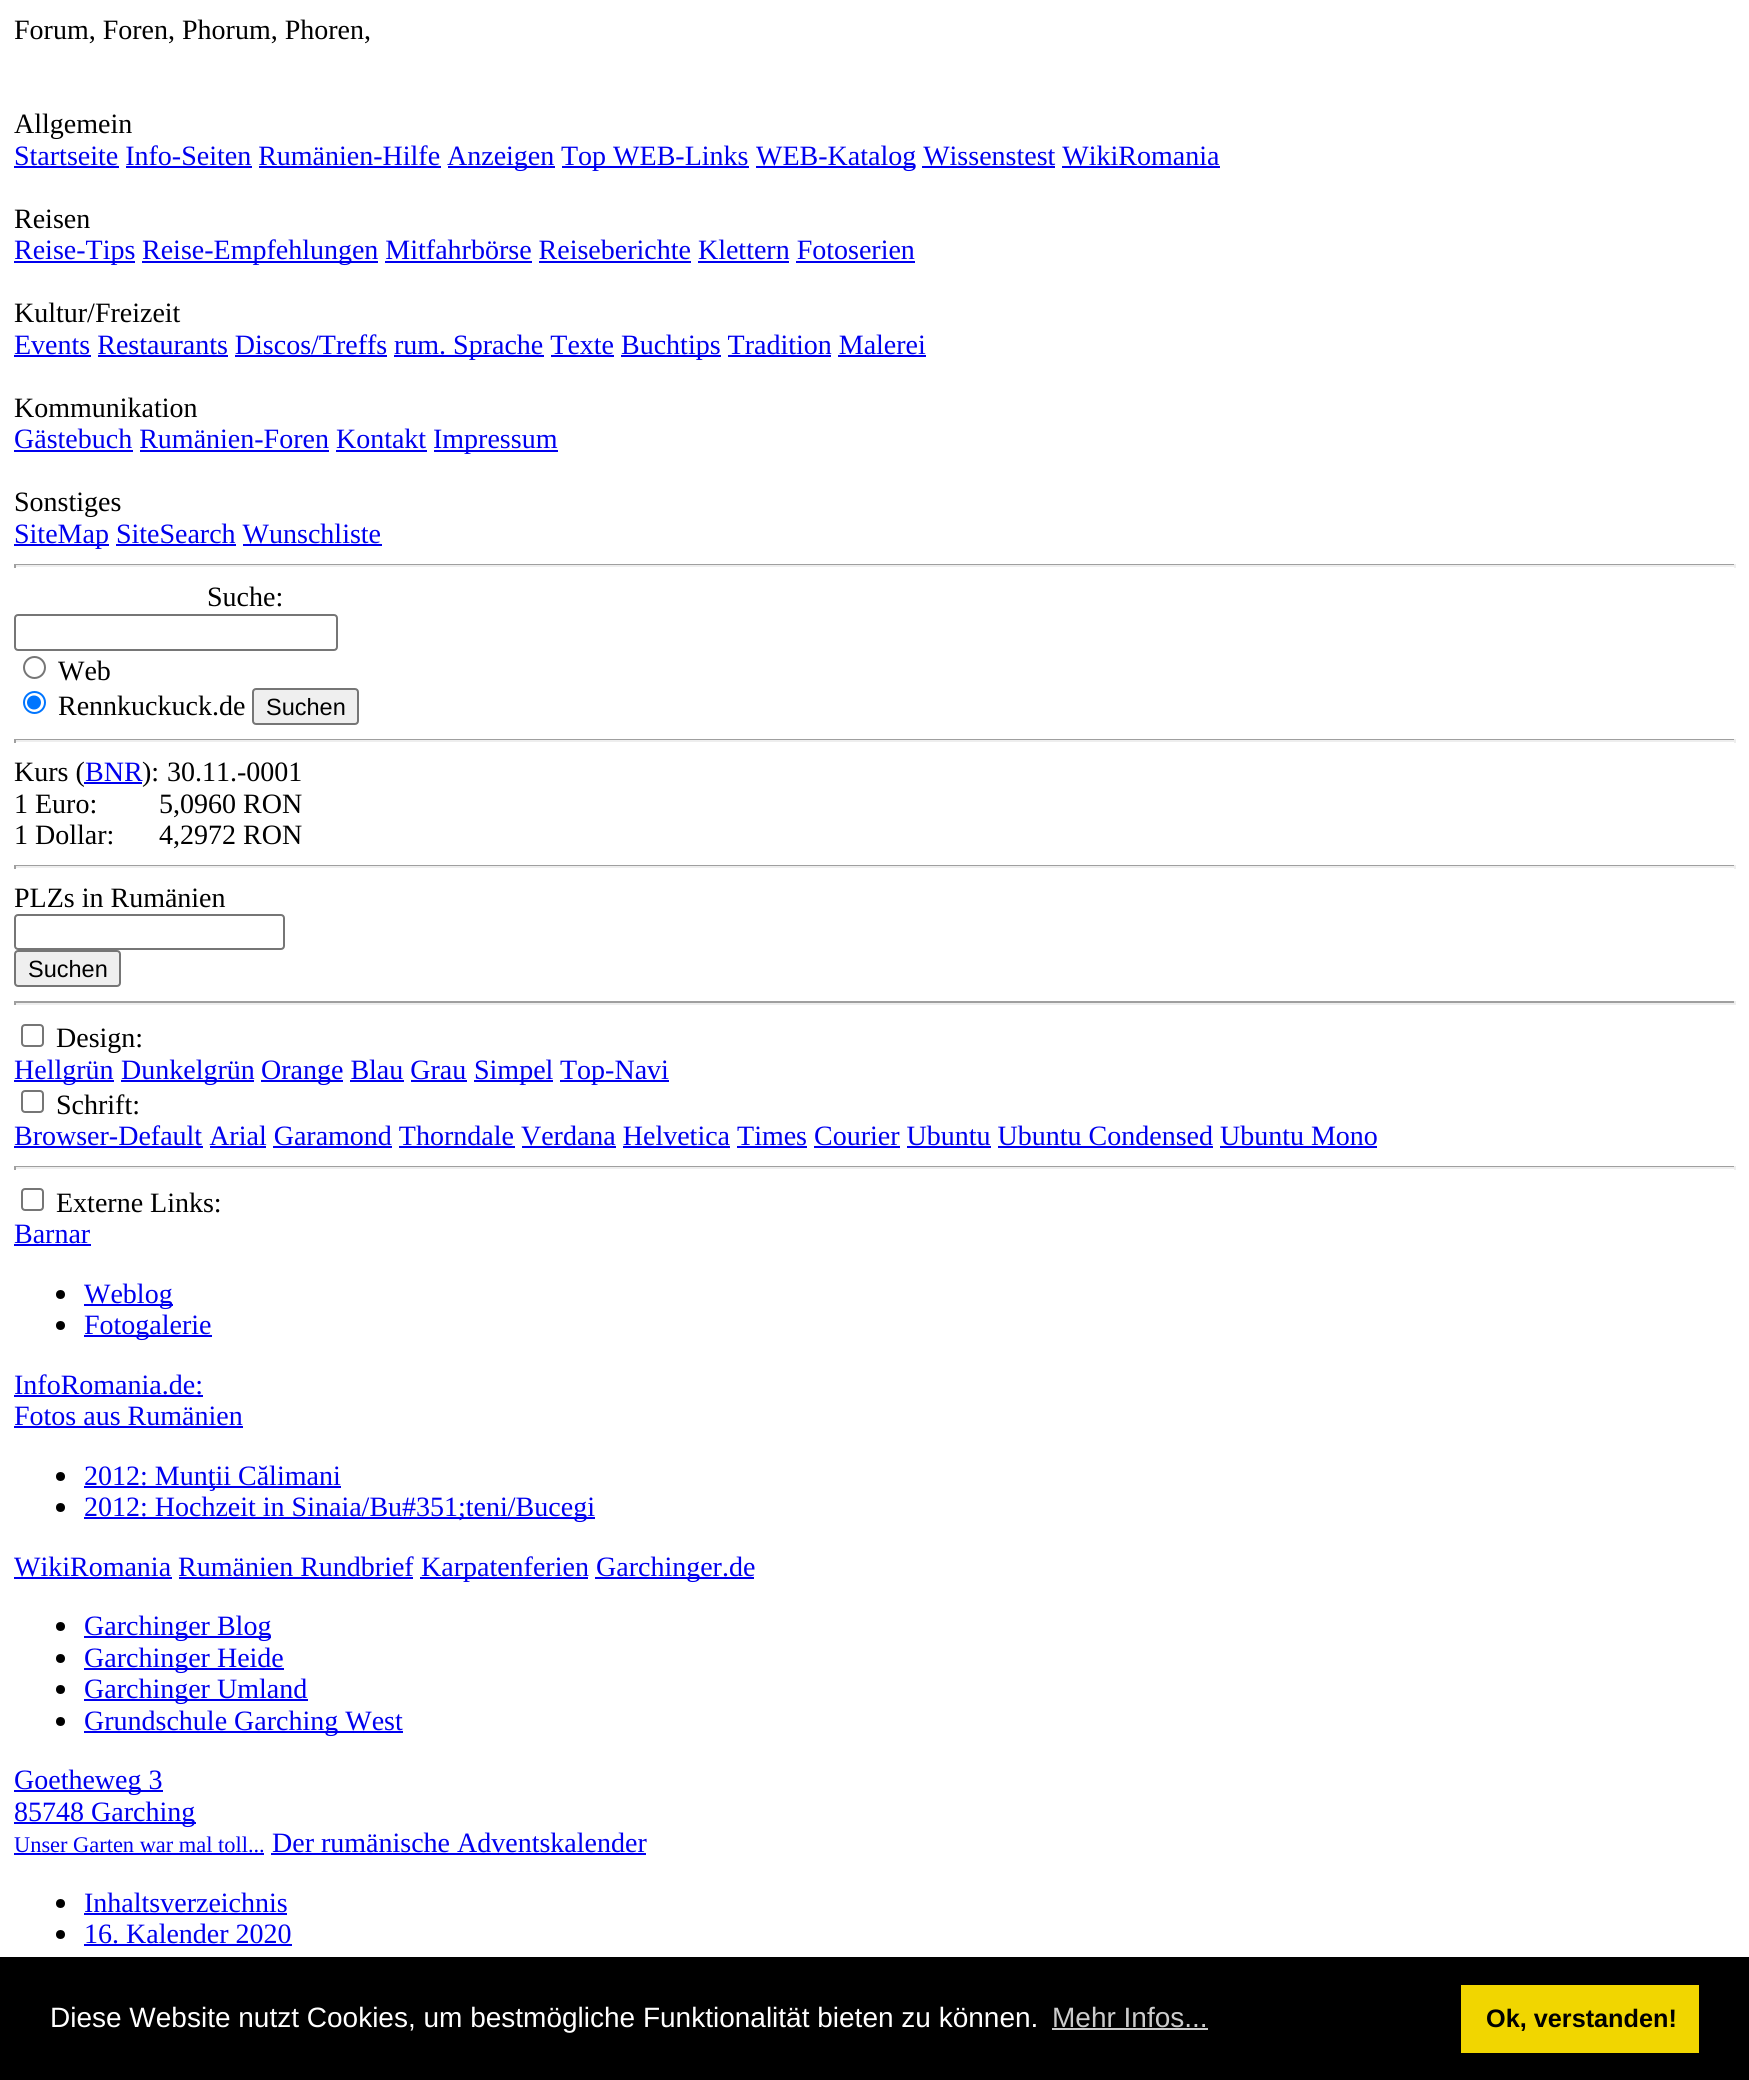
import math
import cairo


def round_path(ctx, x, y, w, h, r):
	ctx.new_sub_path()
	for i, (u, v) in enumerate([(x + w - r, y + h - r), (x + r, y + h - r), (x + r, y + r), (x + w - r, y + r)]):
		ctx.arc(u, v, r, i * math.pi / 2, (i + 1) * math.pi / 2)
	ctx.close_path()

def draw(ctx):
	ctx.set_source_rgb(1, 1, 1)
	ctx.paint()
	ctx.select_font_face('Liberation Serif')
	ctx.set_font_size(28)
	ctx.set_source_rgb(0, 0, 0)
	ctx.move_to(14, 39)
	ctx.show_text('Forum, Foren, Phorum, Phoren,')
	ctx.move_to(14, 133)
	ctx.show_text('Allgemein')
	ctx.set_source_rgb(0, 0, 0.933)
	ctx.move_to(14, 165)
	ctx.show_text('Startseite Info-Seiten Rumänien-Hilfe')
	ctx.rectangle(14, 166, 105, 2)
	ctx.fill()
	ctx.rectangle(448, 166, 107, 2)
	ctx.fill()
	ctx.move_to(447, 165)
	ctx.show_text('Anzeigen')
	ctx.rectangle(562, 166, 187, 2)
	ctx.fill()
	ctx.move_to(561, 165)
	ctx.show_text('Top WEB-Links')
	ctx.rectangle(756, 166, 159, 2)
	ctx.fill()
	ctx.move_to(756, 165)
	ctx.show_text('WEB-Katalog Wissenstest WikiRomania')
	ctx.rectangle(126, 166, 126, 2)
	ctx.rectangle(259, 166, 182, 2)
	ctx.rectangle(922, 166, 133, 2)
	ctx.rectangle(1062, 166, 158, 2)
	ctx.fill()
	ctx.set_source_rgb(0, 0, 0)
	ctx.move_to(14, 228)
	ctx.show_text('Reisen')
	ctx.set_source_rgb(0, 0, 0.933)
	ctx.rectangle(14, 261, 121, 2)
	ctx.fill()
	ctx.move_to(14, 259)
	ctx.show_text('Reise-Tips')
	ctx.rectangle(142, 261, 236, 2)
	ctx.fill()
	ctx.move_to(142, 259)
	ctx.show_text('Reise-Empfehlungen Mitfahrbörse Reiseberichte Klettern Fotoserien')
	ctx.rectangle(385, 261, 147, 2)
	ctx.rectangle(539, 261, 152, 2)
	ctx.rectangle(698, 261, 91, 2)
	ctx.rectangle(796, 261, 119, 2)
	ctx.fill()
	ctx.set_source_rgb(0, 0, 0)
	ctx.move_to(14, 322)
	ctx.show_text('Kultur/Freizeit')
	ctx.set_source_rgb(0, 0, 0.933)
	ctx.move_to(14, 354)
	ctx.show_text('Events Restaurants Discos/Treffs')
	ctx.rectangle(14, 355, 77, 2)
	ctx.fill()
	ctx.rectangle(394, 355, 150, 2)
	ctx.fill()
	ctx.move_to(394, 354)
	ctx.show_text('rum. Sprache Texte')
	ctx.rectangle(621, 355, 100, 2)
	ctx.fill()
	ctx.move_to(621, 354)
	ctx.show_text('Buchtips Tradition Malerei')
	ctx.rectangle(98, 355, 130, 2)
	ctx.rectangle(235, 355, 152, 2)
	ctx.rectangle(551, 355, 63, 2)
	ctx.rectangle(728, 355, 103, 2)
	ctx.rectangle(838, 355, 88, 2)
	ctx.fill()
	ctx.set_source_rgb(0, 0, 0)
	ctx.move_to(14, 417)
	ctx.show_text('Kommunikation')
	ctx.set_source_rgb(0, 0, 0.933)
	ctx.move_to(14, 448)
	ctx.show_text('Gästebuch Rumänien-Foren Kontakt')
	ctx.rectangle(14, 450, 119, 2)
	ctx.fill()
	ctx.rectangle(434, 450, 124, 2)
	ctx.fill()
	ctx.move_to(433, 448)
	ctx.show_text('Impressum')
	ctx.rectangle(140, 450, 189, 2)
	ctx.fill()
	ctx.rectangle(336, 450, 91, 2)
	ctx.fill()
	ctx.set_source_rgb(0, 0, 0)
	ctx.move_to(14, 511)
	ctx.show_text('Sonstiges')
	ctx.set_source_rgb(0, 0, 0.933)
	ctx.rectangle(14, 544, 95, 2)
	ctx.fill()
	ctx.move_to(14, 543)
	ctx.show_text('SiteMap SiteSearch Wunschliste')
	ctx.rectangle(116, 544, 120, 2)
	ctx.rectangle(243, 544, 139, 2)
	ctx.fill()
	ctx.set_source_rgb(0.624, 0.624, 0.624)
	ctx.rectangle(14, 564, 1722, 1)
	ctx.fill()
	ctx.set_source_rgb(0.933, 0.933, 0.933)
	ctx.rectangle(1734, 564, 2, 4)
	ctx.rectangle(14, 565, 1722, 2)
	ctx.fill()
	ctx.set_source_rgb(0.624, 0.624, 0.624)
	ctx.rectangle(14, 564, 2, 4)
	ctx.fill()
	ctx.set_source_rgb(0, 0, 0)
	ctx.move_to(207, 606)
	ctx.show_text('Suche:')
	round_path(ctx, 15, 615, 322, 35, 3)
	ctx.set_source_rgb(0.463, 0.463, 0.463)
	ctx.stroke()
	ctx.arc(34.5, 667.5, 10.5, 0, 2 * math.pi)
	ctx.stroke()
	ctx.set_source_rgb(0, 0, 0)
	ctx.move_to(58, 680)
	ctx.show_text('Web')
	ctx.new_path()
	ctx.arc(34.5, 702.5, 10.5, 0, 2 * math.pi)
	ctx.set_source_rgb(0, 0.459, 1)
	ctx.stroke()
	ctx.arc(34, 702.5, 7, 0, 2 * math.pi)
	ctx.fill()
	ctx.set_source_rgb(0, 0, 0)
	ctx.move_to(58, 715)
	ctx.show_text('Rennkuckuck.de')
	ctx.set_source_rgb(0.937, 0.937, 0.937)
	round_path(ctx, 253, 689, 105, 35, 3)
	ctx.fill_preserve()
	ctx.set_source_rgb(0.463, 0.463, 0.463)
	ctx.stroke()
	ctx.select_font_face('Liberation Sans')
	ctx.set_font_size(23.5)
	ctx.set_source_rgb(0, 0, 0)
	ctx.move_to(266, 715)
	ctx.show_text('Suchen')
	ctx.set_source_rgb(0.624, 0.624, 0.624)
	ctx.rectangle(14, 739, 1722, 1)
	ctx.fill()
	ctx.set_source_rgb(0.933, 0.933, 0.933)
	ctx.rectangle(1734, 739, 2, 4)
	ctx.rectangle(14, 740, 1722, 2)
	ctx.fill()
	ctx.set_source_rgb(0.624, 0.624, 0.624)
	ctx.rectangle(14, 739, 2, 4)
	ctx.fill()
	ctx.select_font_face('Liberation Serif')
	ctx.set_font_size(28)
	ctx.set_source_rgb(0, 0, 0)
	ctx.move_to(14, 781)
	ctx.show_text('Kurs (')
	ctx.set_source_rgb(0, 0, 0.933)
	ctx.move_to(85, 781)
	ctx.show_text('BNR')
	ctx.rectangle(84, 782, 58, 2)
	ctx.fill()
	ctx.set_source_rgb(0, 0, 0)
	for x, y, s in [
		(142, 781, '):'),
		(167, 781, '30.11.-0001'),
		(14, 813, '1 Euro:'),
		(159, 813, '5,0960 RON'),
		(14, 844, '1 Dollar:'),
		(159, 844, '4,2972 RON'),
	]:
		ctx.move_to(x, y)
		ctx.show_text(s)
	ctx.set_source_rgb(0.624, 0.624, 0.624)
	ctx.rectangle(14, 865, 1722, 1)
	ctx.fill()
	ctx.set_source_rgb(0.933, 0.933, 0.933)
	ctx.rectangle(1734, 865, 2, 4)
	ctx.rectangle(14, 866, 1722, 2)
	ctx.fill()
	ctx.set_source_rgb(0.624, 0.624, 0.624)
	ctx.rectangle(14, 865, 2, 4)
	ctx.fill()
	ctx.set_source_rgb(0, 0, 0)
	ctx.move_to(14, 907)
	ctx.show_text('PLZs in Rumänien')
	round_path(ctx, 15, 915, 269, 34, 3)
	ctx.set_source_rgb(0.463, 0.463, 0.463)
	ctx.stroke()
	ctx.set_source_rgb(0.937, 0.937, 0.937)
	round_path(ctx, 15, 951, 105, 35, 3)
	ctx.fill_preserve()
	ctx.set_source_rgb(0.463, 0.463, 0.463)
	ctx.stroke()
	ctx.select_font_face('Liberation Sans')
	ctx.set_font_size(23.5)
	ctx.set_source_rgb(0, 0, 0)
	ctx.move_to(28, 977)
	ctx.show_text('Suchen')
	ctx.set_source_rgb(0.624, 0.624, 0.624)
	ctx.rectangle(14, 1001, 1722, 2)
	ctx.fill()
	ctx.set_source_rgb(0.933, 0.933, 0.933)
	ctx.rectangle(1734, 1001, 2, 4)
	ctx.rectangle(14, 1003, 1722, 2)
	ctx.fill()
	ctx.set_source_rgb(0.624, 0.624, 0.624)
	ctx.rectangle(14, 1001, 2, 4)
	ctx.fill()
	round_path(ctx, 22, 1025, 21, 21, 3)
	ctx.set_source_rgb(0.463, 0.463, 0.463)
	ctx.stroke()
	ctx.select_font_face('Liberation Serif')
	ctx.set_font_size(28)
	ctx.set_source_rgb(0, 0, 0)
	ctx.move_to(56, 1047)
	ctx.show_text('Design:')
	ctx.set_source_rgb(0, 0, 0.933)
	ctx.rectangle(14, 1080, 100, 2)
	ctx.fill()
	ctx.move_to(14, 1079)
	ctx.show_text('Hellgrün')
	ctx.rectangle(121, 1080, 133, 2)
	ctx.fill()
	ctx.move_to(121, 1079)
	ctx.show_text('Dunkelgrün')
	ctx.rectangle(261, 1080, 82, 2)
	ctx.fill()
	ctx.move_to(261, 1079)
	ctx.show_text('Orange Blau Grau')
	ctx.rectangle(474, 1080, 79, 2)
	ctx.fill()
	ctx.move_to(474, 1079)
	ctx.show_text('Simpel')
	ctx.rectangle(560, 1080, 109, 2)
	ctx.fill()
	ctx.move_to(560, 1079)
	ctx.show_text('Top-Navi')
	ctx.rectangle(350, 1080, 54, 2)
	ctx.fill()
	ctx.rectangle(411, 1080, 56, 2)
	ctx.fill()
	round_path(ctx, 22, 1091, 21, 21, 3)
	ctx.set_source_rgb(0.463, 0.463, 0.463)
	ctx.stroke()
	ctx.set_source_rgb(0, 0, 0)
	ctx.move_to(56, 1114)
	ctx.show_text('Schrift:')
	ctx.set_source_rgb(0, 0, 0.933)
	ctx.move_to(14, 1145)
	ctx.show_text('Browser-Default Arial Garamond Thorndale Verdana Helvetica Times Courier Ubuntu Ubuntu Condensed Ubuntu Mono')
	ctx.rectangle(14, 1146, 189, 2)
	ctx.rectangle(210, 1146, 56, 2)
	ctx.rectangle(273, 1146, 119, 2)
	ctx.rectangle(399, 1146, 116, 2)
	ctx.rectangle(522, 1146, 94, 2)
	ctx.rectangle(623, 1146, 107, 2)
	ctx.rectangle(737, 1146, 70, 2)
	ctx.rectangle(814, 1146, 86, 2)
	ctx.rectangle(907, 1146, 84, 2)
	ctx.rectangle(998, 1146, 215, 2)
	ctx.rectangle(1220, 1146, 157, 2)
	ctx.fill()
	ctx.set_source_rgb(0.624, 0.624, 0.624)
	ctx.rectangle(14, 1166, 1722, 1)
	ctx.fill()
	ctx.set_source_rgb(0.933, 0.933, 0.933)
	ctx.rectangle(1734, 1166, 2, 4)
	ctx.rectangle(14, 1167, 1722, 2)
	ctx.fill()
	ctx.set_source_rgb(0.624, 0.624, 0.624)
	ctx.rectangle(14, 1166, 2, 4)
	ctx.fill()
	round_path(ctx, 22, 1189, 21, 21, 3)
	ctx.set_source_rgb(0.463, 0.463, 0.463)
	ctx.stroke()
	ctx.set_source_rgb(0, 0, 0)
	ctx.move_to(56, 1212)
	ctx.show_text('Externe Links:')
	ctx.set_source_rgb(0, 0, 0.933)
	ctx.move_to(14, 1243)
	ctx.show_text('Barnar')
	ctx.rectangle(14, 1244, 77, 2)
	ctx.fill()
	ctx.set_source_rgb(0, 0, 0)
	ctx.arc(60.5, 1294.5, 4.5, 0, 2 * math.pi)
	ctx.fill()
	ctx.set_source_rgb(0, 0, 0.933)
	ctx.rectangle(84, 1304, 89, 2)
	ctx.fill()
	ctx.move_to(84, 1303)
	ctx.show_text('Weblog')
	ctx.set_source_rgb(0, 0, 0)
	ctx.new_path()
	ctx.arc(60.5, 1325.5, 4.5, 0, 2 * math.pi)
	ctx.fill()
	ctx.set_source_rgb(0, 0, 0.933)
	ctx.rectangle(84, 1335, 128, 2)
	ctx.fill()
	ctx.move_to(84, 1334)
	ctx.show_text('Fotogalerie')
	ctx.move_to(14, 1394)
	ctx.show_text('InfoRomania.de:')
	ctx.rectangle(14, 1395, 189, 2)
	ctx.fill()
	ctx.move_to(14, 1425)
	ctx.show_text('Fotos aus Rumänien')
	ctx.rectangle(14, 1426, 229, 2)
	ctx.fill()
	ctx.set_source_rgb(0, 0, 0)
	ctx.arc(60.5, 1476.5, 4.5, 0, 2 * math.pi)
	ctx.fill()
	ctx.set_source_rgb(0, 0, 0.933)
	ctx.rectangle(84, 1486, 257, 2)
	ctx.fill()
	ctx.move_to(84, 1485)
	ctx.show_text('2012: Munţii Călimani')
	ctx.set_source_rgb(0, 0, 0)
	ctx.new_path()
	ctx.arc(60.5, 1507.5, 4.5, 0, 2 * math.pi)
	ctx.fill()
	ctx.set_source_rgb(0, 0, 0.933)
	ctx.rectangle(84, 1517, 511, 2)
	ctx.fill()
	ctx.move_to(84, 1516)
	ctx.show_text('2012: Hochzeit in Sinaia/Bu#351;teni/Bucegi')
	ctx.move_to(14, 1576)
	ctx.show_text('WikiRomania Rumänien Rundbrief')
	ctx.rectangle(14, 1577, 158, 2)
	ctx.fill()
	ctx.rectangle(420, 1577, 168, 2)
	ctx.fill()
	ctx.move_to(421, 1576)
	ctx.show_text('Karpatenferien')
	ctx.rectangle(595, 1577, 159, 2)
	ctx.fill()
	ctx.move_to(596, 1576)
	ctx.show_text('Garchinger.de')
	ctx.rectangle(179, 1577, 234, 2)
	ctx.fill()
	ctx.set_source_rgb(0, 0, 0)
	ctx.arc(60.5, 1626.5, 4.5, 0, 2 * math.pi)
	ctx.fill()
	ctx.set_source_rgb(0, 0, 0.933)
	ctx.rectangle(84, 1636, 187, 2)
	ctx.fill()
	ctx.move_to(84, 1635)
	ctx.show_text('Garchinger Blog')
	ctx.set_source_rgb(0, 0, 0)
	ctx.new_path()
	ctx.arc(60.5, 1658.5, 4.5, 0, 2 * math.pi)
	ctx.fill()
	ctx.set_source_rgb(0, 0, 0.933)
	ctx.rectangle(84, 1668, 200, 2)
	ctx.fill()
	ctx.move_to(84, 1667)
	ctx.show_text('Garchinger Heide')
	ctx.set_source_rgb(0, 0, 0)
	ctx.new_path()
	ctx.arc(60.5, 1689.5, 4.5, 0, 2 * math.pi)
	ctx.fill()
	ctx.set_source_rgb(0, 0, 0.933)
	ctx.rectangle(84, 1699, 224, 2)
	ctx.fill()
	ctx.move_to(84, 1698)
	ctx.show_text('Garchinger Umland')
	ctx.set_source_rgb(0, 0, 0)
	ctx.new_path()
	ctx.arc(60.5, 1721.5, 4.5, 0, 2 * math.pi)
	ctx.fill()
	ctx.set_source_rgb(0, 0, 0.933)
	ctx.rectangle(84, 1731, 319, 2)
	ctx.fill()
	ctx.move_to(84, 1730)
	ctx.show_text('Grundschule Garching West')
	ctx.rectangle(14, 1790, 149, 2)
	ctx.fill()
	ctx.move_to(14, 1789)
	ctx.show_text('Goetheweg 3')
	ctx.rectangle(14, 1822, 182, 2)
	ctx.fill()
	ctx.move_to(14, 1821)
	ctx.show_text('85748 Garching')
	ctx.set_font_size(22.4)
	ctx.move_to(14, 1852)
	ctx.show_text('Unser Garten war mal toll...')
	ctx.rectangle(14, 1853, 250, 2)
	ctx.fill()
	ctx.set_font_size(28)
	ctx.move_to(272, 1852)
	ctx.show_text('Der rumänische Adventskalender')
	ctx.rectangle(271, 1853, 375, 2)
	ctx.fill()
	ctx.set_source_rgb(0, 0, 0)
	ctx.arc(60.5, 1903.5, 4.5, 0, 2 * math.pi)
	ctx.fill()
	ctx.set_source_rgb(0, 0, 0.933)
	ctx.move_to(84, 1912)
	ctx.show_text('Inhaltsverzeichnis')
	ctx.rectangle(84, 1913, 203, 2)
	ctx.fill()
	ctx.set_source_rgb(0, 0, 0)
	ctx.arc(60.5, 1934.5, 4.5, 0, 2 * math.pi)
	ctx.fill()
	ctx.set_source_rgb(0, 0, 0.933)
	ctx.move_to(84, 1943)
	ctx.show_text('16. Kalender 2020')
	ctx.rectangle(84, 1944, 208, 2)
	ctx.fill()
	ctx.set_source_rgb(0, 0, 0)
	ctx.rectangle(0, 1957, 1749, 123)
	ctx.fill()
	ctx.select_font_face('Liberation Sans')
	ctx.set_source_rgb(1, 1, 1)
	ctx.move_to(50, 2027)
	ctx.show_text('Diese Website nutzt Cookies, um bestmögliche Funktionalität bieten zu können.')
	ctx.set_source_rgb(0.8, 0.8, 0.8)
	ctx.move_to(1052, 2027)
	ctx.show_text('Mehr Infos...')
	ctx.rectangle(1052, 2028, 156, 2)
	ctx.fill()
	ctx.set_source_rgb(0.945, 0.839, 0)
	ctx.rectangle(1461, 1985, 238, 68)
	ctx.fill()
	ctx.select_font_face('Liberation Sans', cairo.FONT_SLANT_NORMAL, cairo.FONT_WEIGHT_BOLD)
	ctx.set_font_size(25.25)
	ctx.set_source_rgb(0, 0, 0)
	ctx.move_to(1486, 2027)
	ctx.show_text('Ok, verstanden!')


surface = cairo.ImageSurface(cairo.FORMAT_RGB24, 1749, 2080)
ctx = cairo.Context(surface)
options = cairo.FontOptions()
options.set_hint_metrics(cairo.HINT_METRICS_OFF)
options.set_hint_style(cairo.HINT_STYLE_NONE)
ctx.set_font_options(options)
ctx.set_miter_limit(4)
draw(ctx)
surface.write_to_png('image.png')
